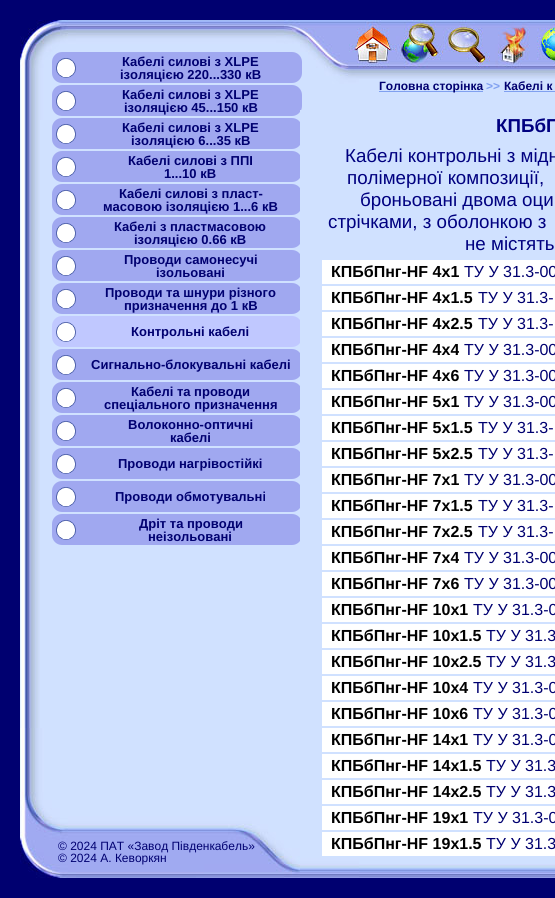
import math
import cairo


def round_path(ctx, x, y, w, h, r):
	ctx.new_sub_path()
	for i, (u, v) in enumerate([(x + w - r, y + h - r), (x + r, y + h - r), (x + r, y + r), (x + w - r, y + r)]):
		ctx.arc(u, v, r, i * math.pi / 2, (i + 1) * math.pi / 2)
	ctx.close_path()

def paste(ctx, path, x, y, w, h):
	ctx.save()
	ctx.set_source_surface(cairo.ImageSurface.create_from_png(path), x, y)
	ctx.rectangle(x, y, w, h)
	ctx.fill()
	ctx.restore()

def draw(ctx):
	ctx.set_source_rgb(0, 0, 0.439)
	ctx.paint()
	paste(ctx, 'media/1.png', 20, 20, 339, 100)
	ctx.set_source_rgb(0.816, 0.882, 1)
	ctx.rectangle(359, 79, 196, 31)
	ctx.fill()
	paste(ctx, 'media/2.png', 359, 20, 150, 59)
	paste(ctx, 'media/3.png', 509, 20, 46, 59)
	ctx.rectangle(40, 120, 260, 608)
	ctx.fill()
	paste(ctx, 'media/4.png', 20, 120, 20, 608)
	paste(ctx, 'media/5.png', 20, 728, 339, 150)
	ctx.rectangle(359, 858, 196, 6)
	ctx.fill()
	paste(ctx, 'media/6.png', 359, 864, 150, 14)
	paste(ctx, 'media/7.png', 509, 864, 46, 14)
	paste(ctx, 'media/8.png', 349, 20, 47, 48)
	paste(ctx, 'media/9.png', 396, 20, 47, 48)
	paste(ctx, 'media/10.png', 443, 20, 47, 48)
	paste(ctx, 'media/11.png', 495, 21, 35, 47)
	paste(ctx, 'media/12.png', 537, 20, 18, 48)
	ctx.set_source_rgb(0.627, 0.659, 0.941)
	round_path(ctx, 52, 52, 250, 31, 10)
	ctx.fill()
	paste(ctx, 'media/13.png', 56, 58, 20, 20)
	ctx.select_font_face('Liberation Sans', cairo.FONT_SLANT_NORMAL, cairo.FONT_WEIGHT_BOLD)
	ctx.set_font_size(13)
	ctx.set_source_rgb(0, 0, 0.439)
	ctx.move_to(122, 66)
	ctx.show_text('Кабелі силові з XLPE')
	ctx.move_to(120, 79)
	ctx.show_text('ізоляцією 220...330 кВ')
	ctx.set_source_rgb(0.627, 0.659, 0.941)
	round_path(ctx, 52, 85, 250, 31, 10)
	ctx.fill()
	paste(ctx, 'media/13.png', 56, 91, 20, 20)
	ctx.set_source_rgb(0, 0, 0.439)
	ctx.move_to(122, 99)
	ctx.show_text('Кабелі силові з XLPE')
	ctx.move_to(124, 112)
	ctx.show_text('ізоляцією 45...150 кВ')
	ctx.set_source_rgb(0.627, 0.659, 0.941)
	round_path(ctx, 52, 118, 250, 31, 10)
	ctx.fill()
	paste(ctx, 'media/13.png', 56, 124, 20, 20)
	ctx.set_source_rgb(0, 0, 0.439)
	ctx.move_to(122, 132)
	ctx.show_text('Кабелі силові з XLPE')
	ctx.move_to(131, 145)
	ctx.show_text('ізоляцією 6...35 кВ')
	ctx.set_source_rgb(0.627, 0.659, 0.941)
	round_path(ctx, 52, 151, 250, 31, 10)
	ctx.fill()
	paste(ctx, 'media/13.png', 56, 157, 20, 20)
	ctx.set_source_rgb(0, 0, 0.439)
	ctx.move_to(128, 165)
	ctx.show_text('Кабелі силові з ППІ')
	ctx.move_to(164, 178)
	ctx.show_text('1...10 кВ')
	ctx.set_source_rgb(0.627, 0.659, 0.941)
	round_path(ctx, 52, 184, 250, 31, 10)
	ctx.fill()
	paste(ctx, 'media/13.png', 56, 190, 20, 20)
	ctx.set_source_rgb(0, 0, 0.439)
	ctx.move_to(119, 198)
	ctx.show_text('Кабелі силові з пласт-')
	ctx.move_to(103, 211)
	ctx.show_text('масовою ізоляцією 1...6 кВ')
	ctx.set_source_rgb(0.627, 0.659, 0.941)
	round_path(ctx, 52, 217, 250, 31, 10)
	ctx.fill()
	paste(ctx, 'media/13.png', 56, 223, 20, 20)
	ctx.set_source_rgb(0, 0, 0.439)
	ctx.move_to(114, 231)
	ctx.show_text('Кабелі з пластмасовою')
	ctx.move_to(134, 244)
	ctx.show_text('ізоляцією 0.66 кВ')
	ctx.set_source_rgb(0.627, 0.659, 0.941)
	round_path(ctx, 52, 250, 250, 31, 10)
	ctx.fill()
	paste(ctx, 'media/13.png', 56, 256, 20, 20)
	ctx.set_source_rgb(0, 0, 0.439)
	ctx.move_to(124, 264)
	ctx.show_text('Проводи самонесучі')
	ctx.move_to(156, 277)
	ctx.show_text('ізольовані')
	ctx.set_source_rgb(0.627, 0.659, 0.941)
	round_path(ctx, 52, 283, 250, 31, 10)
	ctx.fill()
	paste(ctx, 'media/13.png', 56, 289, 20, 20)
	ctx.set_source_rgb(0, 0, 0.439)
	ctx.move_to(105, 297)
	ctx.show_text('Проводи та шнури різного')
	ctx.move_to(124, 310)
	ctx.show_text('призначення до 1 кВ')
	ctx.set_source_rgb(0.753, 0.784, 1)
	round_path(ctx, 52, 316, 250, 31, 10)
	ctx.fill()
	paste(ctx, 'media/14.png', 56, 322, 20, 20)
	ctx.set_source_rgb(0, 0, 0.439)
	ctx.move_to(131, 336)
	ctx.show_text('Контрольні кабелі')
	ctx.set_source_rgb(0.627, 0.659, 0.941)
	round_path(ctx, 52, 349, 250, 31, 10)
	ctx.fill()
	paste(ctx, 'media/13.png', 56, 355, 20, 20)
	ctx.set_source_rgb(0, 0, 0.439)
	ctx.move_to(91, 369)
	ctx.show_text('Сигнально-блокувальні кабелі')
	ctx.set_source_rgb(0.627, 0.659, 0.941)
	round_path(ctx, 52, 382, 250, 31, 10)
	ctx.fill()
	paste(ctx, 'media/13.png', 56, 388, 20, 20)
	ctx.set_source_rgb(0, 0, 0.439)
	ctx.move_to(131, 396)
	ctx.show_text('Кабелі та проводи')
	ctx.move_to(104, 409)
	ctx.show_text('спеціального призначення')
	ctx.set_source_rgb(0.627, 0.659, 0.941)
	round_path(ctx, 52, 415, 250, 31, 10)
	ctx.fill()
	paste(ctx, 'media/13.png', 56, 421, 20, 20)
	ctx.set_source_rgb(0, 0, 0.439)
	ctx.move_to(128, 429)
	ctx.show_text('Волоконно-оптичні')
	ctx.move_to(170, 442)
	ctx.show_text('кабелі')
	ctx.set_source_rgb(0.627, 0.659, 0.941)
	round_path(ctx, 52, 448, 250, 31, 10)
	ctx.fill()
	paste(ctx, 'media/13.png', 56, 454, 20, 20)
	ctx.set_source_rgb(0, 0, 0.439)
	ctx.move_to(118, 468)
	ctx.show_text('Проводи нагрівостійкі')
	ctx.set_source_rgb(0.627, 0.659, 0.941)
	round_path(ctx, 52, 481, 250, 31, 10)
	ctx.fill()
	paste(ctx, 'media/13.png', 56, 487, 20, 20)
	ctx.set_source_rgb(0, 0, 0.439)
	ctx.move_to(115, 501)
	ctx.show_text('Проводи обмотувальні')
	ctx.set_source_rgb(0.627, 0.659, 0.941)
	round_path(ctx, 52, 514, 250, 31, 10)
	ctx.fill()
	paste(ctx, 'media/13.png', 56, 520, 20, 20)
	ctx.set_source_rgb(0, 0, 0.439)
	ctx.move_to(139, 528)
	ctx.show_text('Дріт та проводи')
	ctx.move_to(148, 541)
	ctx.show_text('неізольовані')
	ctx.select_font_face('Liberation Sans')
	ctx.set_font_size(12)
	ctx.move_to(58, 850)
	ctx.show_text('© 2024 ПАТ «Завод Південкабель»')
	ctx.move_to(58, 862)
	ctx.show_text('© 2024 А. Кеворкян')
	ctx.set_source_rgb(0.502, 0.627, 0.941)
	ctx.rectangle(379, 91, 104, 1)
	ctx.fill()
	ctx.select_font_face('Liberation Sans', cairo.FONT_SLANT_NORMAL, cairo.FONT_WEIGHT_BOLD)
	ctx.set_source_rgb(0, 0, 0.439)
	ctx.move_to(379, 90)
	ctx.show_text('Головна сторінка')
	ctx.set_source_rgb(0.502, 0.627, 0.941)
	ctx.move_to(486, 90)
	ctx.show_text('>>')
	ctx.set_source_rgb(0, 0, 0.439)
	ctx.move_to(504, 90)
	ctx.show_text('Кабелі к')
	ctx.set_source_rgb(0.502, 0.627, 0.941)
	ctx.rectangle(504, 91, 51, 1)
	ctx.fill()
	ctx.set_source_rgb(0.816, 0.882, 1)
	ctx.rectangle(300, 110, 255, 748)
	ctx.fill()
	ctx.set_font_size(18.75)
	ctx.set_source_rgb(0, 0, 0.502)
	ctx.move_to(496, 132)
	ctx.show_text('КПБбП')
	ctx.select_font_face('Liberation Sans')
	for x, y, s in [
		(345, 162, 'Кабелі контрольні з мідн'),
		(347, 184, 'полімерної композиції,'),
		(360, 206, 'броньовані двома оци'),
		(328, 228, 'стрічками, з оболонкою з'),
		(465, 250, 'не містять'),
	]:
		ctx.move_to(x, y)
		ctx.show_text(s)
	ctx.set_source_rgb(1, 1, 1)
	ctx.rectangle(322, 260, 233, 24)
	ctx.fill()
	ctx.select_font_face('Liberation Sans', cairo.FONT_SLANT_NORMAL, cairo.FONT_WEIGHT_BOLD)
	ctx.set_font_size(16)
	ctx.set_source_rgb(0, 0, 0)
	ctx.move_to(331, 277)
	ctx.show_text('КПБбПнг-HF 4x1')
	ctx.select_font_face('Liberation Sans')
	ctx.set_source_rgb(0, 0, 0.439)
	ctx.move_to(464, 277)
	ctx.show_text('ТУ У 31.3-00')
	ctx.set_source_rgb(1, 1, 1)
	ctx.rectangle(322, 286, 233, 24)
	ctx.fill()
	ctx.select_font_face('Liberation Sans', cairo.FONT_SLANT_NORMAL, cairo.FONT_WEIGHT_BOLD)
	ctx.set_source_rgb(0, 0, 0)
	ctx.move_to(331, 303)
	ctx.show_text('КПБбПнг-HF 4x1.5')
	ctx.select_font_face('Liberation Sans')
	ctx.set_source_rgb(0, 0, 0.439)
	ctx.move_to(478, 303)
	ctx.show_text('ТУ У 31.3-')
	ctx.set_source_rgb(1, 1, 1)
	ctx.rectangle(322, 312, 233, 24)
	ctx.fill()
	ctx.select_font_face('Liberation Sans', cairo.FONT_SLANT_NORMAL, cairo.FONT_WEIGHT_BOLD)
	ctx.set_source_rgb(0, 0, 0)
	ctx.move_to(331, 329)
	ctx.show_text('КПБбПнг-HF 4x2.5')
	ctx.select_font_face('Liberation Sans')
	ctx.set_source_rgb(0, 0, 0.439)
	ctx.move_to(478, 329)
	ctx.show_text('ТУ У 31.3-')
	ctx.set_source_rgb(1, 1, 1)
	ctx.rectangle(322, 338, 233, 24)
	ctx.fill()
	ctx.select_font_face('Liberation Sans', cairo.FONT_SLANT_NORMAL, cairo.FONT_WEIGHT_BOLD)
	ctx.set_source_rgb(0, 0, 0)
	ctx.move_to(331, 355)
	ctx.show_text('КПБбПнг-HF 4x4')
	ctx.select_font_face('Liberation Sans')
	ctx.set_source_rgb(0, 0, 0.439)
	ctx.move_to(464, 355)
	ctx.show_text('ТУ У 31.3-00')
	ctx.set_source_rgb(1, 1, 1)
	ctx.rectangle(322, 364, 233, 24)
	ctx.fill()
	ctx.select_font_face('Liberation Sans', cairo.FONT_SLANT_NORMAL, cairo.FONT_WEIGHT_BOLD)
	ctx.set_source_rgb(0, 0, 0)
	ctx.move_to(331, 381)
	ctx.show_text('КПБбПнг-HF 4x6')
	ctx.select_font_face('Liberation Sans')
	ctx.set_source_rgb(0, 0, 0.439)
	ctx.move_to(464, 381)
	ctx.show_text('ТУ У 31.3-00')
	ctx.set_source_rgb(1, 1, 1)
	ctx.rectangle(322, 390, 233, 24)
	ctx.fill()
	ctx.select_font_face('Liberation Sans', cairo.FONT_SLANT_NORMAL, cairo.FONT_WEIGHT_BOLD)
	ctx.set_source_rgb(0, 0, 0)
	ctx.move_to(331, 407)
	ctx.show_text('КПБбПнг-HF 5x1')
	ctx.select_font_face('Liberation Sans')
	ctx.set_source_rgb(0, 0, 0.439)
	ctx.move_to(464, 407)
	ctx.show_text('ТУ У 31.3-00')
	ctx.set_source_rgb(1, 1, 1)
	ctx.rectangle(322, 416, 233, 24)
	ctx.fill()
	ctx.select_font_face('Liberation Sans', cairo.FONT_SLANT_NORMAL, cairo.FONT_WEIGHT_BOLD)
	ctx.set_source_rgb(0, 0, 0)
	ctx.move_to(331, 433)
	ctx.show_text('КПБбПнг-HF 5x1.5')
	ctx.select_font_face('Liberation Sans')
	ctx.set_source_rgb(0, 0, 0.439)
	ctx.move_to(478, 433)
	ctx.show_text('ТУ У 31.3-')
	ctx.set_source_rgb(1, 1, 1)
	ctx.rectangle(322, 442, 233, 24)
	ctx.fill()
	ctx.select_font_face('Liberation Sans', cairo.FONT_SLANT_NORMAL, cairo.FONT_WEIGHT_BOLD)
	ctx.set_source_rgb(0, 0, 0)
	ctx.move_to(331, 459)
	ctx.show_text('КПБбПнг-HF 5x2.5')
	ctx.select_font_face('Liberation Sans')
	ctx.set_source_rgb(0, 0, 0.439)
	ctx.move_to(478, 459)
	ctx.show_text('ТУ У 31.3-')
	ctx.set_source_rgb(1, 1, 1)
	ctx.rectangle(322, 468, 233, 24)
	ctx.fill()
	ctx.select_font_face('Liberation Sans', cairo.FONT_SLANT_NORMAL, cairo.FONT_WEIGHT_BOLD)
	ctx.set_source_rgb(0, 0, 0)
	ctx.move_to(331, 485)
	ctx.show_text('КПБбПнг-HF 7x1')
	ctx.select_font_face('Liberation Sans')
	ctx.set_source_rgb(0, 0, 0.439)
	ctx.move_to(464, 485)
	ctx.show_text('ТУ У 31.3-00')
	ctx.set_source_rgb(1, 1, 1)
	ctx.rectangle(322, 494, 233, 24)
	ctx.fill()
	ctx.select_font_face('Liberation Sans', cairo.FONT_SLANT_NORMAL, cairo.FONT_WEIGHT_BOLD)
	ctx.set_source_rgb(0, 0, 0)
	ctx.move_to(331, 511)
	ctx.show_text('КПБбПнг-HF 7x1.5')
	ctx.select_font_face('Liberation Sans')
	ctx.set_source_rgb(0, 0, 0.439)
	ctx.move_to(478, 511)
	ctx.show_text('ТУ У 31.3-')
	ctx.set_source_rgb(1, 1, 1)
	ctx.rectangle(322, 520, 233, 24)
	ctx.fill()
	ctx.select_font_face('Liberation Sans', cairo.FONT_SLANT_NORMAL, cairo.FONT_WEIGHT_BOLD)
	ctx.set_source_rgb(0, 0, 0)
	ctx.move_to(331, 537)
	ctx.show_text('КПБбПнг-HF 7x2.5')
	ctx.select_font_face('Liberation Sans')
	ctx.set_source_rgb(0, 0, 0.439)
	ctx.move_to(478, 537)
	ctx.show_text('ТУ У 31.3-')
	ctx.set_source_rgb(1, 1, 1)
	ctx.rectangle(322, 546, 233, 24)
	ctx.fill()
	ctx.select_font_face('Liberation Sans', cairo.FONT_SLANT_NORMAL, cairo.FONT_WEIGHT_BOLD)
	ctx.set_source_rgb(0, 0, 0)
	ctx.move_to(331, 563)
	ctx.show_text('КПБбПнг-HF 7x4')
	ctx.select_font_face('Liberation Sans')
	ctx.set_source_rgb(0, 0, 0.439)
	ctx.move_to(464, 563)
	ctx.show_text('ТУ У 31.3-00')
	ctx.set_source_rgb(1, 1, 1)
	ctx.rectangle(322, 572, 233, 24)
	ctx.fill()
	ctx.select_font_face('Liberation Sans', cairo.FONT_SLANT_NORMAL, cairo.FONT_WEIGHT_BOLD)
	ctx.set_source_rgb(0, 0, 0)
	ctx.move_to(331, 589)
	ctx.show_text('КПБбПнг-HF 7x6')
	ctx.select_font_face('Liberation Sans')
	ctx.set_source_rgb(0, 0, 0.439)
	ctx.move_to(464, 589)
	ctx.show_text('ТУ У 31.3-00')
	ctx.set_source_rgb(1, 1, 1)
	ctx.rectangle(322, 598, 233, 24)
	ctx.fill()
	ctx.select_font_face('Liberation Sans', cairo.FONT_SLANT_NORMAL, cairo.FONT_WEIGHT_BOLD)
	ctx.set_source_rgb(0, 0, 0)
	ctx.move_to(331, 615)
	ctx.show_text('КПБбПнг-HF 10x1')
	ctx.select_font_face('Liberation Sans')
	ctx.set_source_rgb(0, 0, 0.439)
	ctx.move_to(473, 615)
	ctx.show_text('ТУ У 31.3-0')
	ctx.set_source_rgb(1, 1, 1)
	ctx.rectangle(322, 624, 233, 24)
	ctx.fill()
	ctx.select_font_face('Liberation Sans', cairo.FONT_SLANT_NORMAL, cairo.FONT_WEIGHT_BOLD)
	ctx.set_source_rgb(0, 0, 0)
	ctx.move_to(331, 641)
	ctx.show_text('КПБбПнг-HF 10x1.5')
	ctx.select_font_face('Liberation Sans')
	ctx.set_source_rgb(0, 0, 0.439)
	ctx.move_to(486, 641)
	ctx.show_text('ТУ У 31.3')
	ctx.set_source_rgb(1, 1, 1)
	ctx.rectangle(322, 650, 233, 24)
	ctx.fill()
	ctx.select_font_face('Liberation Sans', cairo.FONT_SLANT_NORMAL, cairo.FONT_WEIGHT_BOLD)
	ctx.set_source_rgb(0, 0, 0)
	ctx.move_to(331, 667)
	ctx.show_text('КПБбПнг-HF 10x2.5')
	ctx.select_font_face('Liberation Sans')
	ctx.set_source_rgb(0, 0, 0.439)
	ctx.move_to(486, 667)
	ctx.show_text('ТУ У 31.3')
	ctx.set_source_rgb(1, 1, 1)
	ctx.rectangle(322, 676, 233, 24)
	ctx.fill()
	ctx.select_font_face('Liberation Sans', cairo.FONT_SLANT_NORMAL, cairo.FONT_WEIGHT_BOLD)
	ctx.set_source_rgb(0, 0, 0)
	ctx.move_to(331, 693)
	ctx.show_text('КПБбПнг-HF 10x4')
	ctx.select_font_face('Liberation Sans')
	ctx.set_source_rgb(0, 0, 0.439)
	ctx.move_to(473, 693)
	ctx.show_text('ТУ У 31.3-0')
	ctx.set_source_rgb(1, 1, 1)
	ctx.rectangle(322, 702, 233, 24)
	ctx.fill()
	ctx.select_font_face('Liberation Sans', cairo.FONT_SLANT_NORMAL, cairo.FONT_WEIGHT_BOLD)
	ctx.set_source_rgb(0, 0, 0)
	ctx.move_to(331, 719)
	ctx.show_text('КПБбПнг-HF 10x6')
	ctx.select_font_face('Liberation Sans')
	ctx.set_source_rgb(0, 0, 0.439)
	ctx.move_to(473, 719)
	ctx.show_text('ТУ У 31.3-0')
	ctx.set_source_rgb(1, 1, 1)
	ctx.rectangle(322, 728, 233, 24)
	ctx.fill()
	ctx.select_font_face('Liberation Sans', cairo.FONT_SLANT_NORMAL, cairo.FONT_WEIGHT_BOLD)
	ctx.set_source_rgb(0, 0, 0)
	ctx.move_to(331, 745)
	ctx.show_text('КПБбПнг-HF 14x1')
	ctx.select_font_face('Liberation Sans')
	ctx.set_source_rgb(0, 0, 0.439)
	ctx.move_to(473, 745)
	ctx.show_text('ТУ У 31.3-0')
	ctx.set_source_rgb(1, 1, 1)
	ctx.rectangle(322, 754, 233, 24)
	ctx.fill()
	ctx.select_font_face('Liberation Sans', cairo.FONT_SLANT_NORMAL, cairo.FONT_WEIGHT_BOLD)
	ctx.set_source_rgb(0, 0, 0)
	ctx.move_to(331, 771)
	ctx.show_text('КПБбПнг-HF 14x1.5')
	ctx.select_font_face('Liberation Sans')
	ctx.set_source_rgb(0, 0, 0.439)
	ctx.move_to(486, 771)
	ctx.show_text('ТУ У 31.3')
	ctx.set_source_rgb(1, 1, 1)
	ctx.rectangle(322, 780, 233, 24)
	ctx.fill()
	ctx.select_font_face('Liberation Sans', cairo.FONT_SLANT_NORMAL, cairo.FONT_WEIGHT_BOLD)
	ctx.set_source_rgb(0, 0, 0)
	ctx.move_to(331, 797)
	ctx.show_text('КПБбПнг-HF 14x2.5')
	ctx.select_font_face('Liberation Sans')
	ctx.set_source_rgb(0, 0, 0.439)
	ctx.move_to(486, 797)
	ctx.show_text('ТУ У 31.3')
	ctx.set_source_rgb(1, 1, 1)
	ctx.rectangle(322, 806, 233, 24)
	ctx.fill()
	ctx.select_font_face('Liberation Sans', cairo.FONT_SLANT_NORMAL, cairo.FONT_WEIGHT_BOLD)
	ctx.set_source_rgb(0, 0, 0)
	ctx.move_to(331, 823)
	ctx.show_text('КПБбПнг-HF 19x1')
	ctx.select_font_face('Liberation Sans')
	ctx.set_source_rgb(0, 0, 0.439)
	ctx.move_to(473, 823)
	ctx.show_text('ТУ У 31.3-0')
	ctx.set_source_rgb(1, 1, 1)
	ctx.rectangle(322, 832, 233, 24)
	ctx.fill()
	ctx.select_font_face('Liberation Sans', cairo.FONT_SLANT_NORMAL, cairo.FONT_WEIGHT_BOLD)
	ctx.set_source_rgb(0, 0, 0)
	ctx.move_to(331, 849)
	ctx.show_text('КПБбПнг-HF 19x1.5')
	ctx.select_font_face('Liberation Sans')
	ctx.set_source_rgb(0, 0, 0.439)
	ctx.move_to(486, 849)
	ctx.show_text('ТУ У 31.3')


surface = cairo.ImageSurface(cairo.FORMAT_RGB24, 555, 898)
ctx = cairo.Context(surface)
options = cairo.FontOptions()
options.set_hint_metrics(cairo.HINT_METRICS_OFF)
options.set_hint_style(cairo.HINT_STYLE_NONE)
ctx.set_font_options(options)
ctx.set_miter_limit(4)
draw(ctx)
surface.write_to_png('image.png')
